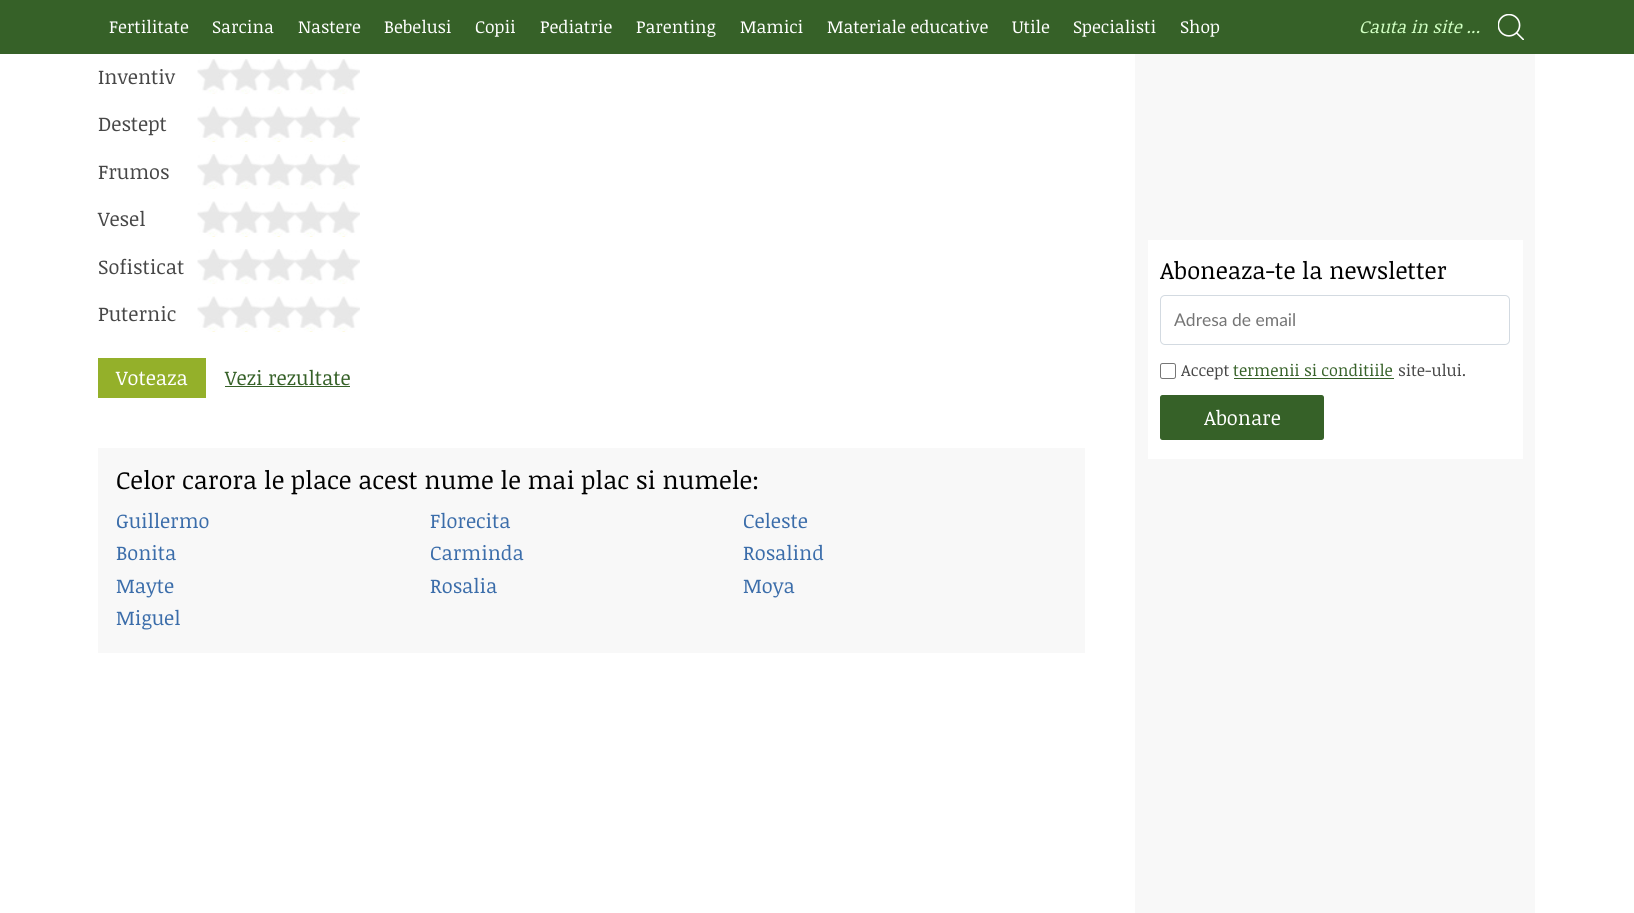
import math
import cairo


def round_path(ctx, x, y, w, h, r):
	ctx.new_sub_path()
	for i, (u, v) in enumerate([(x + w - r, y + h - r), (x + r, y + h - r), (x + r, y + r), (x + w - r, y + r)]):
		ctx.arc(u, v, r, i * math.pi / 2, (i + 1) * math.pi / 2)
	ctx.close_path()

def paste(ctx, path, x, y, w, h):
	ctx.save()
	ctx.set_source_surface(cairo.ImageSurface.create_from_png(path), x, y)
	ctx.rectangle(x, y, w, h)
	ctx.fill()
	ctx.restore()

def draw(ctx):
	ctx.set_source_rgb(1, 1, 1)
	ctx.paint()
	ctx.set_source_rgb(0.212, 0.38, 0.157)
	ctx.rectangle(0, 0, 1634, 54)
	ctx.fill()
	ctx.select_font_face('Noticia Text')
	ctx.set_font_size(17.5)
	ctx.set_source_rgb(1, 1, 1)
	for x, y, s in [
		(109, 33, 'Fertilitate'),
		(212, 33, 'Sarcina'),
		(298, 33, 'Nastere'),
		(384, 33, 'Bebelusi'),
		(475, 33, 'Copii'),
		(540, 33, 'Pediatrie'),
		(636, 33, 'Parenting'),
		(740, 33, 'Mamici'),
		(827, 33, 'Materiale educative'),
		(1012, 33, 'Utile'),
		(1073, 33, 'Specialisti'),
		(1180, 33, 'Shop'),
	]:
		ctx.move_to(x, y)
		ctx.show_text(s)
	ctx.select_font_face('Noticia Text', cairo.FONT_SLANT_ITALIC)
	ctx.set_source_rgb(0.816, 1, 0.761)
	ctx.move_to(1359, 33)
	ctx.show_text('Cauta in site ...')
	paste(ctx, 'media/1.png', 1498, 14, 26, 26)
	ctx.select_font_face('Noticia Text')
	ctx.set_font_size(20)
	ctx.set_source_rgb(0.278, 0.278, 0.278)
	ctx.move_to(98, 84)
	ctx.show_text('Inventiv')
	paste(ctx, 'media/2.png', 197, 59, 163, 35)
	ctx.move_to(98, 131)
	ctx.show_text('Destept')
	paste(ctx, 'media/3.png', 197, 106, 163, 36)
	ctx.move_to(98, 179)
	ctx.show_text('Frumos')
	paste(ctx, 'media/4.png', 197, 154, 163, 35)
	ctx.move_to(98, 226)
	ctx.show_text('Vesel')
	paste(ctx, 'media/5.png', 197, 201, 163, 36)
	ctx.move_to(98, 274)
	ctx.show_text('Sofisticat')
	paste(ctx, 'media/2.png', 197, 249, 163, 35)
	ctx.move_to(98, 321)
	ctx.show_text('Puternic')
	paste(ctx, 'media/6.png', 197, 296, 163, 36)
	ctx.set_source_rgb(0.58, 0.69, 0.165)
	ctx.rectangle(98, 358, 108, 40)
	ctx.fill()
	ctx.set_source_rgb(1, 1, 1)
	ctx.move_to(116, 385)
	ctx.show_text('Voteaza')
	ctx.set_source_rgb(0.212, 0.38, 0.157)
	ctx.move_to(225, 385)
	ctx.show_text('Vezi rezultate')
	ctx.rectangle(225, 386, 125, 1)
	ctx.fill()
	ctx.set_source_rgb(0.969, 0.969, 0.969)
	ctx.rectangle(98, 448, 987, 205)
	ctx.fill()
	ctx.set_font_size(25)
	ctx.set_source_rgb(0, 0, 0)
	ctx.move_to(116, 489)
	ctx.show_text('Celor carora le place acest nume le mai plac si numele:')
	ctx.set_font_size(20)
	ctx.set_source_rgb(0.231, 0.427, 0.667)
	for x, y, s in [
		(116, 528, 'Guillermo'),
		(430, 528, 'Florecita'),
		(743, 528, 'Celeste'),
		(116, 560, 'Bonita'),
		(430, 560, 'Carminda'),
		(743, 560, 'Rosalind'),
		(116, 593, 'Mayte'),
		(430, 593, 'Rosalia'),
		(743, 593, 'Moya'),
		(116, 625, 'Miguel'),
	]:
		ctx.move_to(x, y)
		ctx.show_text(s)
	ctx.set_source_rgb(0.969, 0.969, 0.969)
	ctx.rectangle(1135, 54, 400, 859)
	ctx.fill()
	ctx.set_source_rgb(1, 1, 1)
	ctx.rectangle(1148, 240, 375, 219)
	ctx.fill()
	ctx.set_font_size(23.75)
	ctx.set_source_rgb(0, 0, 0)
	ctx.move_to(1160, 279)
	ctx.show_text('Aboneaza-te la newsletter')
	round_path(ctx, 1160.5, 295.5, 349, 49, 4.5)
	ctx.set_source_rgb(0.827, 0.855, 0.882)
	ctx.set_line_width(1)
	ctx.stroke()
	ctx.select_font_face('Lato')
	ctx.set_font_size(17.5)
	ctx.set_source_rgb(0.459, 0.459, 0.459)
	ctx.move_to(1174, 326)
	ctx.show_text('Adresa de email')
	round_path(ctx, 1160.5, 363.5, 15, 15, 2)
	ctx.set_source_rgb(0.463, 0.463, 0.463)
	ctx.stroke()
	ctx.select_font_face('Noticia Text')
	ctx.set_font_size(16.25)
	ctx.set_source_rgb(0.278, 0.278, 0.278)
	ctx.move_to(1181, 376)
	ctx.show_text('Accept')
	ctx.set_source_rgb(0.212, 0.38, 0.157)
	ctx.move_to(1233, 376)
	ctx.show_text('termenii si conditiile')
	ctx.rectangle(1234, 378, 160, 1)
	ctx.fill()
	ctx.set_source_rgb(0.278, 0.278, 0.278)
	ctx.move_to(1398, 376)
	ctx.show_text('site-ului.')
	ctx.set_source_rgb(0.212, 0.38, 0.157)
	round_path(ctx, 1160, 395, 164, 45, 2.5)
	ctx.fill()
	ctx.set_font_size(20)
	ctx.set_source_rgb(1, 1, 1)
	ctx.move_to(1204, 425)
	ctx.show_text('Abonare')


surface = cairo.ImageSurface(cairo.FORMAT_RGB24, 1634, 913)
ctx = cairo.Context(surface)
options = cairo.FontOptions()
options.set_hint_metrics(cairo.HINT_METRICS_OFF)
options.set_hint_style(cairo.HINT_STYLE_NONE)
ctx.set_font_options(options)
ctx.set_miter_limit(4)
draw(ctx)
surface.write_to_png('image.png')
